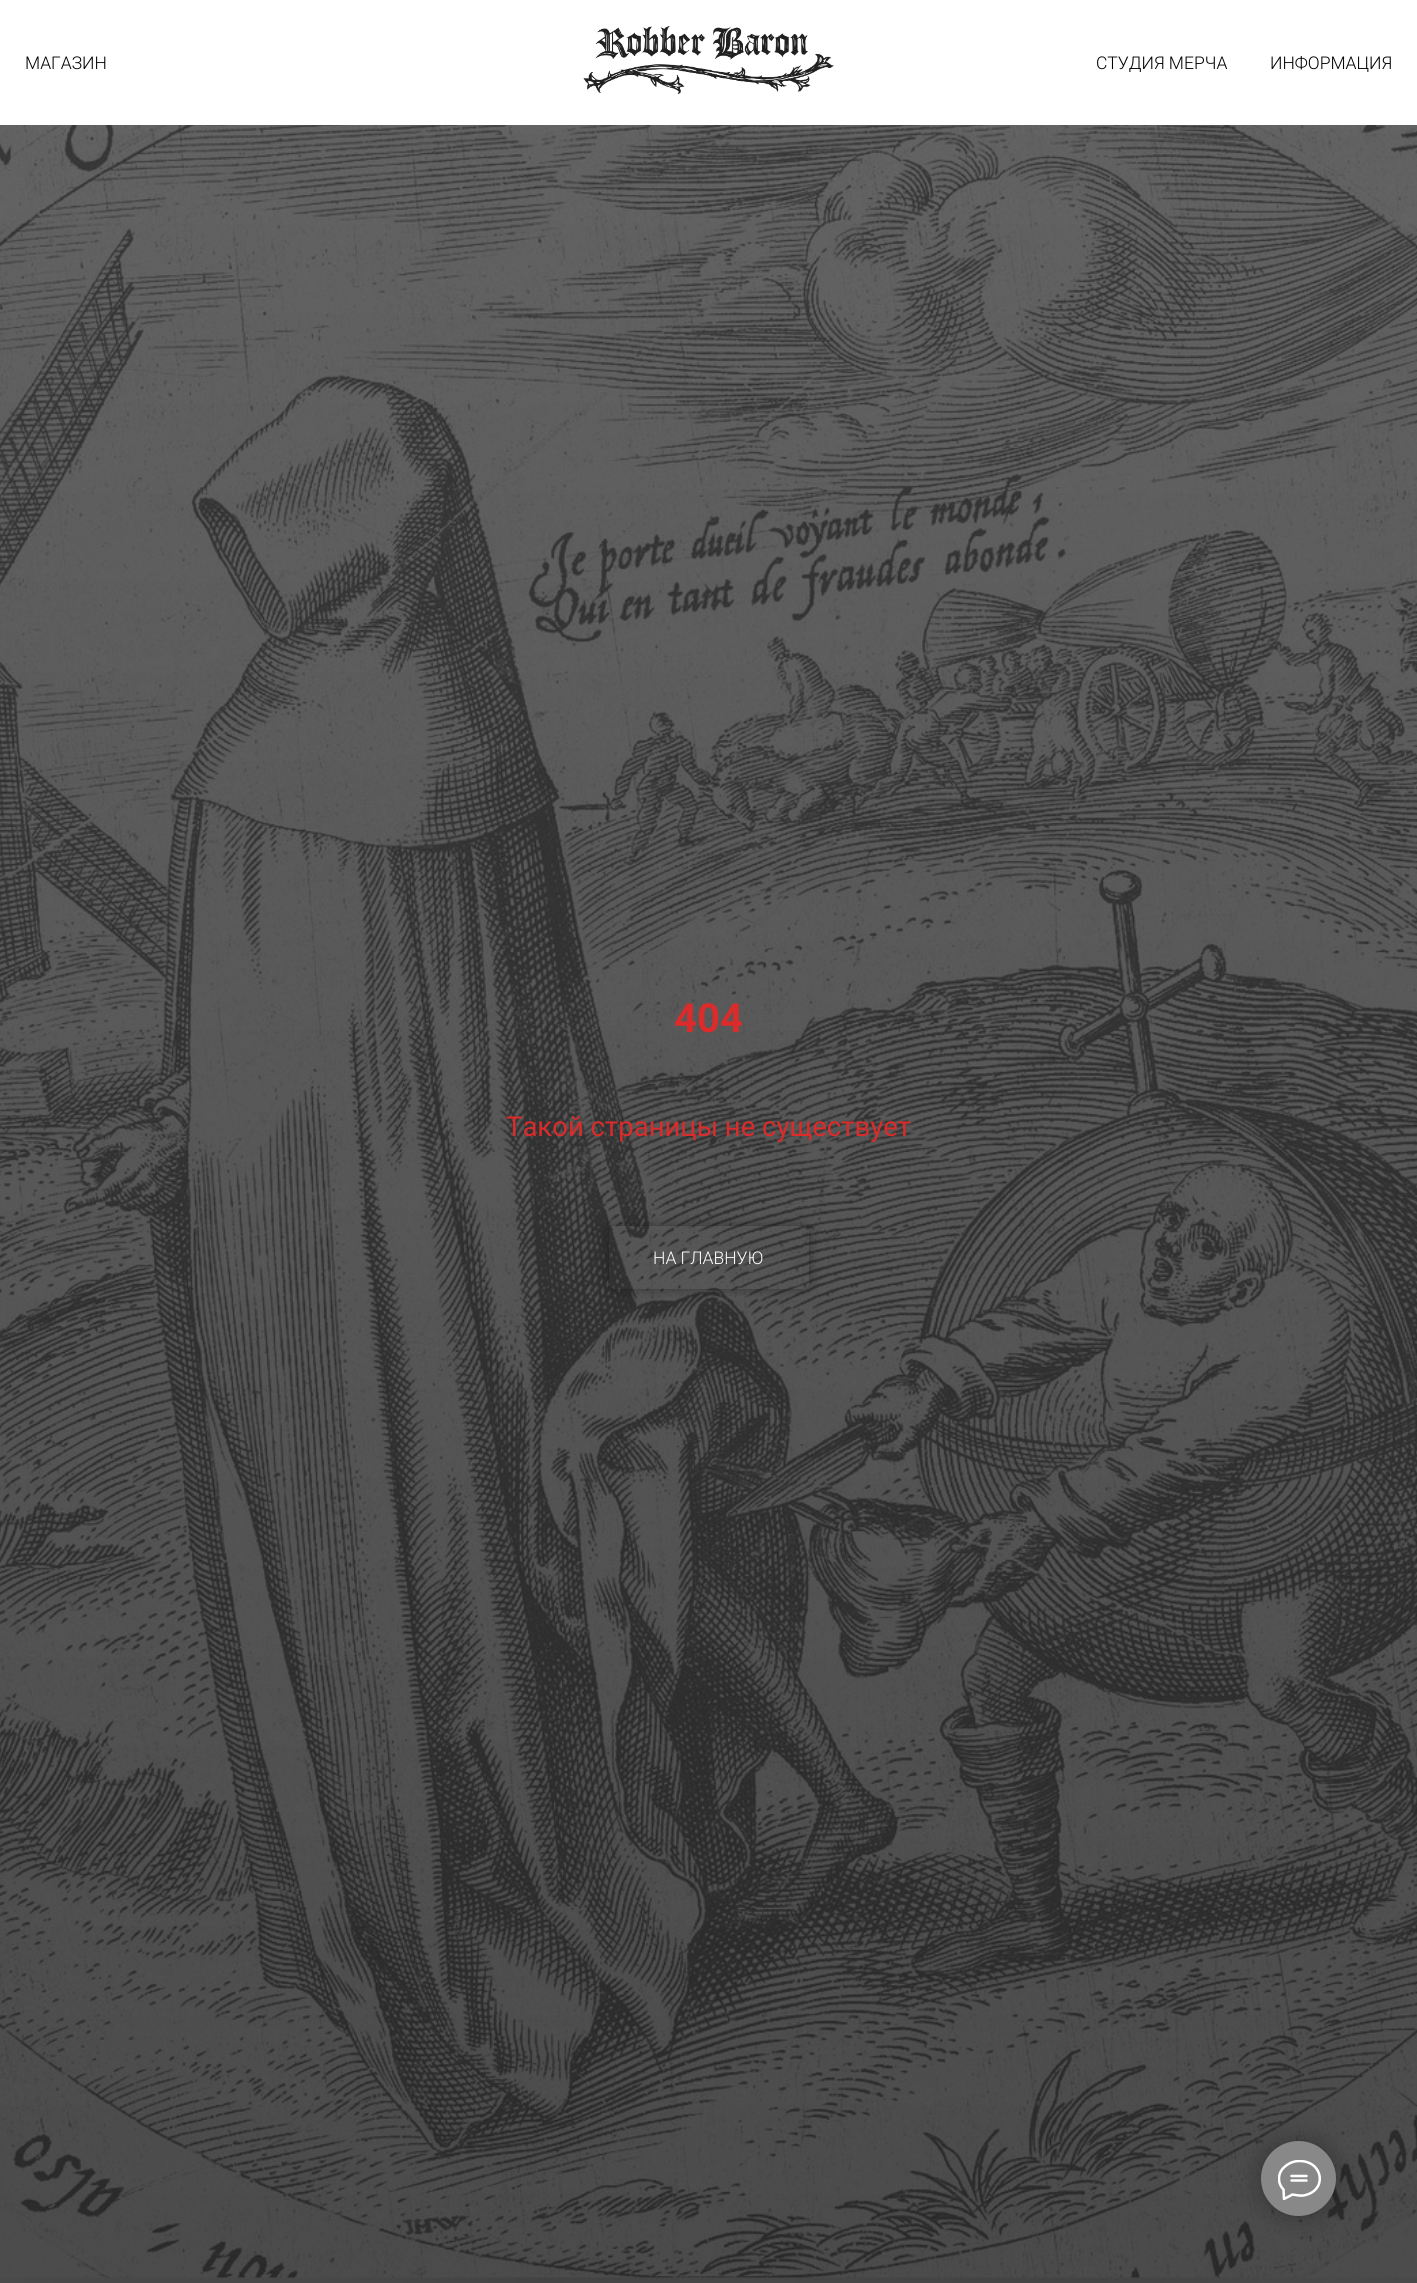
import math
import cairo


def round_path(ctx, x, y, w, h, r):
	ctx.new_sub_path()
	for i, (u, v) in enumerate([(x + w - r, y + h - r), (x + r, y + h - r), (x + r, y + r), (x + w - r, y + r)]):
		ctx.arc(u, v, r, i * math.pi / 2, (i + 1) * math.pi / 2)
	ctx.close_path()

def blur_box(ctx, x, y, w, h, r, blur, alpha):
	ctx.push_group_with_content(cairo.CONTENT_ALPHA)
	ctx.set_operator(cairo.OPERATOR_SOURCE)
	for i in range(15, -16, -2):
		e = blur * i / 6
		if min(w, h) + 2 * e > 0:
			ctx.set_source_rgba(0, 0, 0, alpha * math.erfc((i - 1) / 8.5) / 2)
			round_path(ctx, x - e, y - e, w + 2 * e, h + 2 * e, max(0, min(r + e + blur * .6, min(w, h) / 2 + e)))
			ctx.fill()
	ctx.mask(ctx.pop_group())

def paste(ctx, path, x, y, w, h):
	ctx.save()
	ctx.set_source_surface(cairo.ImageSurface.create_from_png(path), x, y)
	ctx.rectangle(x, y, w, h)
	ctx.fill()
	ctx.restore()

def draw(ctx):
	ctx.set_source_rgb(1, 1, 1)
	ctx.paint()
	ctx.select_font_face('Roboto Light')
	ctx.set_font_size(17.5)
	ctx.set_source_rgb(0, 0, 0)
	ctx.move_to(25, 69)
	ctx.show_text('МАГАЗИН')
	paste(ctx, 'media/1.png', 583, 26, 251, 68)
	ctx.move_to(1096, 69)
	ctx.show_text('СТУДИЯ МЕРЧА')
	ctx.move_to(1270, 69)
	ctx.show_text('ИНФОРМАЦИЯ')
	paste(ctx, 'media/2.png', 0, 2277, 1417, 6)
	paste(ctx, 'media/3.png', 0, 125, 1417, 2153)
	gradient = cairo.LinearGradient(709, 0, 709, 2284)
	gradient.add_color_stop_rgba(0, 0, 0, 0, 0.6)
	gradient.add_color_stop_rgba(1, 0, 0, 0, 0.7)
	ctx.set_source(gradient)
	ctx.rectangle(0, 125, 1417, 2158)
	ctx.fill()
	ctx.set_source_rgb(0, 0, 0)
	blur_box(ctx, 1261, 2141, 75, 75, 37.5, 12.5, 0.3)
	ctx.set_source_rgb(0.537, 0.533, 0.533)
	ctx.arc(1298.5, 2178.5, 37.5, 0, 2 * math.pi)
	ctx.fill()
	ctx.save()
	ctx.rectangle(1278, 2160, 43, 40)
	ctx.clip()
	ctx.new_path()
	ctx.move_to(1291.5, 2176)
	ctx.line_to(1306.5, 2176)
	ctx.move_to(1291.5, 2180.5)
	ctx.line_to(1306.5, 2180.5)
	ctx.move_to(1283.5, 2189.5)
	ctx.curve_to(1277, 2183, 1277.5, 2172.5, 1285, 2166.5)
	ctx.curve_to(1289, 2163, 1294, 2161, 1299.5, 2161)
	ctx.curve_to(1323.5, 2161, 1328, 2191, 1303.5, 2195.5)
	ctx.curve_to(1299.5, 2196, 1296.5, 2195, 1292.5, 2194.5)
	ctx.line_to(1284, 2199)
	ctx.close_path()
	ctx.set_source_rgb(1, 1, 1)
	ctx.set_line_width(2.5)
	ctx.set_line_cap(cairo.LINE_CAP_ROUND)
	ctx.set_line_join(cairo.LINE_JOIN_ROUND)
	ctx.stroke()
	ctx.restore()
	ctx.select_font_face('Roboto', cairo.FONT_SLANT_NORMAL, cairo.FONT_WEIGHT_BOLD)
	ctx.set_font_size(40)
	ctx.set_source_rgb(0.859, 0.169, 0.169)
	ctx.move_to(674, 1032)
	ctx.show_text('404')
	ctx.select_font_face('Roboto')
	ctx.set_font_size(27.5)
	ctx.move_to(506, 1136)
	ctx.show_text('Такой страницы не существует')
	ctx.save()
	ctx.set_fill_rule(cairo.FILL_RULE_EVEN_ODD)
	ctx.new_path()
	ctx.move_to(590, 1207)
	ctx.line_to(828, 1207)
	ctx.line_to(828, 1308)
	ctx.line_to(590, 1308)
	ctx.close_path()
	ctx.move_to(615, 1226)
	ctx.line_to(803, 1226)
	ctx.curve_to(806.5, 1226, 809, 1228.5, 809, 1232)
	ctx.line_to(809, 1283)
	ctx.curve_to(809, 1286.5, 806.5, 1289, 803, 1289)
	ctx.line_to(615, 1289)
	ctx.curve_to(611.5, 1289, 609, 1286.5, 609, 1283)
	ctx.line_to(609, 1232)
	ctx.curve_to(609, 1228.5, 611.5, 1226, 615, 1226)
	ctx.close_path()
	ctx.clip()
	ctx.set_source_rgb(0, 0, 0)
	blur_box(ctx, 609, 1226, 200, 63, 6, 6, 0.4)
	ctx.restore()
	ctx.select_font_face('Roboto Light')
	ctx.set_font_size(17.5)
	ctx.set_source_rgb(1, 1, 1)
	ctx.move_to(653, 1264)
	ctx.show_text('НА ГЛАВНУЮ')


surface = cairo.ImageSurface(cairo.FORMAT_RGB24, 1417, 2283)
ctx = cairo.Context(surface)
options = cairo.FontOptions()
options.set_hint_metrics(cairo.HINT_METRICS_OFF)
options.set_hint_style(cairo.HINT_STYLE_NONE)
ctx.set_font_options(options)
ctx.set_miter_limit(4)
draw(ctx)
surface.write_to_png('image.png')
